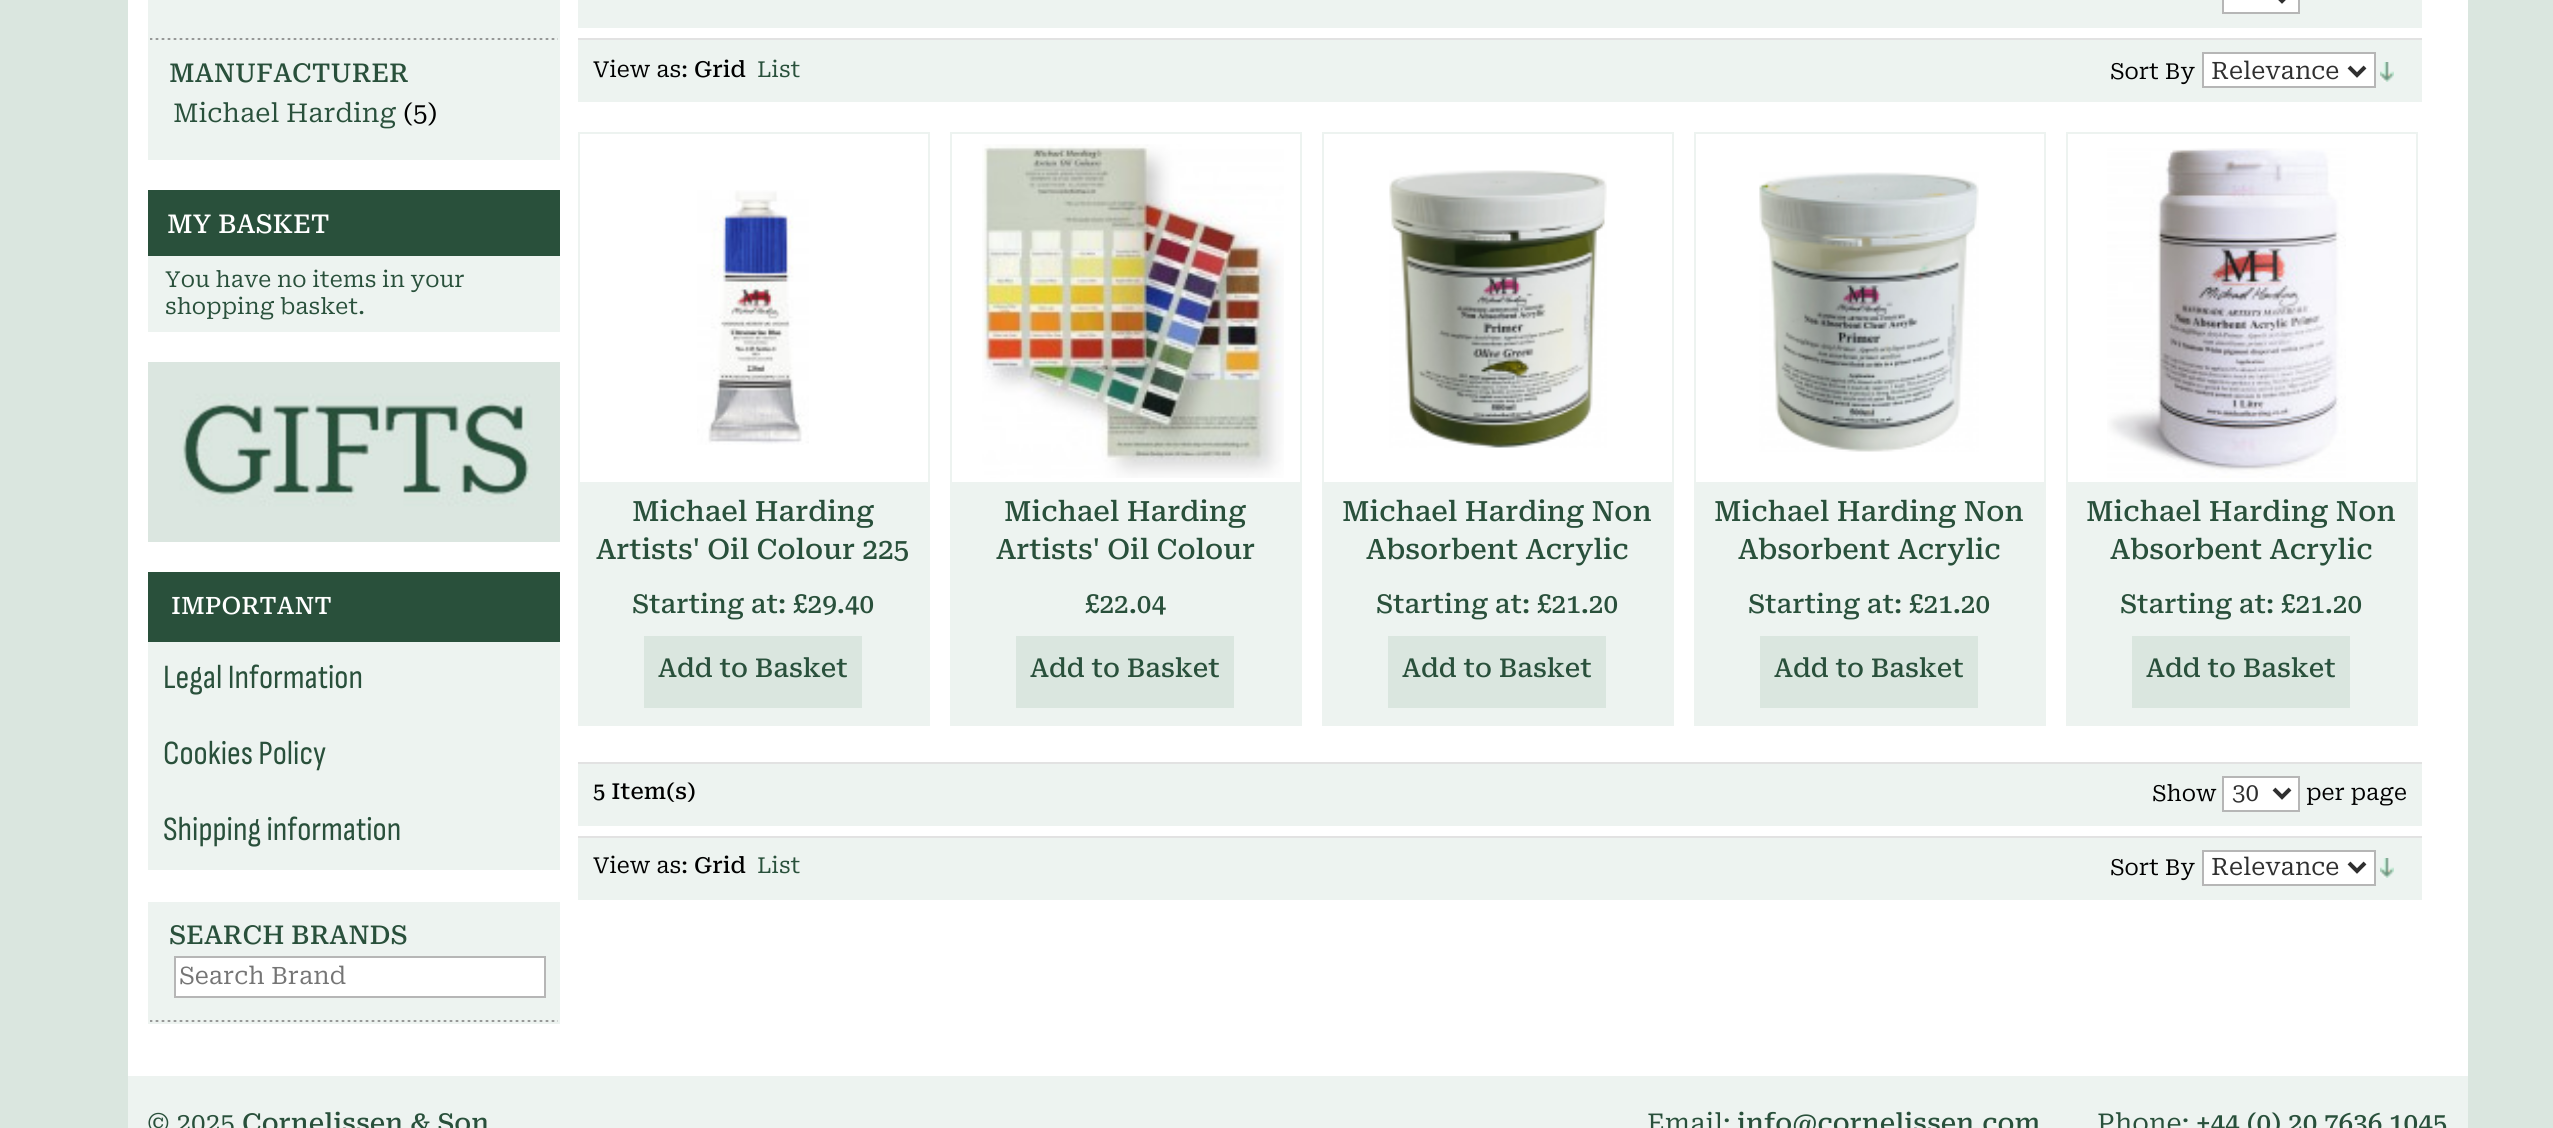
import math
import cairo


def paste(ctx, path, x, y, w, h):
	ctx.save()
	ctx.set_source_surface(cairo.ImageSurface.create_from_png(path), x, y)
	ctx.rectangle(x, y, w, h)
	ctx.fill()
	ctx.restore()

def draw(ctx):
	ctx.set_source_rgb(0.855, 0.902, 0.875)
	ctx.paint()
	ctx.set_source_rgb(1, 1, 1)
	ctx.rectangle(128, 0, 2340, 1076)
	ctx.fill()
	ctx.set_source_rgb(0.929, 0.953, 0.941)
	ctx.rectangle(148, 0, 412, 160)
	ctx.fill()
	paste(ctx, 'media/1.png', 150, 38, 408, 2)
	ctx.select_font_face('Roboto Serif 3 Medium')
	ctx.set_font_size(26)
	ctx.set_source_rgb(0.161, 0.314, 0.231)
	ctx.move_to(169, 82)
	ctx.show_text('MANUFACTURER')
	ctx.select_font_face('Roboto Serif 3')
	ctx.move_to(173, 122)
	ctx.show_text('Michael Harding')
	ctx.set_source_rgb(0, 0, 0)
	ctx.move_to(403, 122)
	ctx.show_text('(5)')
	ctx.set_source_rgb(0.161, 0.314, 0.231)
	ctx.rectangle(148, 190, 412, 66)
	ctx.fill()
	ctx.select_font_face('Roboto Serif 3 Medium')
	ctx.set_source_rgb(1, 1, 1)
	ctx.move_to(167, 233)
	ctx.show_text('MY BASKET')
	ctx.set_source_rgb(0.929, 0.953, 0.941)
	ctx.rectangle(148, 256, 412, 76)
	ctx.fill()
	ctx.select_font_face('Roboto Serif')
	ctx.set_font_size(22)
	ctx.set_source_rgb(0.161, 0.314, 0.231)
	ctx.move_to(165, 287)
	ctx.show_text('You have no items in your')
	ctx.move_to(165, 314)
	ctx.show_text('shopping basket.')
	paste(ctx, 'media/2.png', 148, 362, 412, 180)
	ctx.set_source_rgb(0.929, 0.953, 0.941)
	ctx.rectangle(148, 642, 412, 228)
	ctx.fill()
	ctx.set_source_rgb(0.161, 0.314, 0.231)
	ctx.rectangle(148, 572, 412, 70)
	ctx.fill()
	ctx.select_font_face('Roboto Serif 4 Medium')
	ctx.set_font_size(24)
	ctx.set_source_rgb(1, 1, 1)
	ctx.move_to(171, 614)
	ctx.show_text('IMPORTANT')
	ctx.select_font_face('Sofia Sans Condensed')
	ctx.set_font_size(34)
	ctx.set_source_rgb(0.161, 0.314, 0.231)
	for x, y, s in [
		(163, 688, 'Legal Information'),
		(163, 764, 'Cookies Policy'),
		(163, 840, 'Shipping information'),
	]:
		ctx.move_to(x, y)
		ctx.show_text(s)
	ctx.set_source_rgb(0.929, 0.953, 0.941)
	ctx.rectangle(148, 902, 412, 122)
	ctx.fill()
	ctx.select_font_face('Roboto Serif 3 Medium')
	ctx.set_font_size(26)
	ctx.set_source_rgb(0.161, 0.314, 0.231)
	ctx.move_to(169, 944)
	ctx.show_text('SEARCH BRANDS')
	paste(ctx, 'media/1.png', 150, 1020, 408, 2)
	ctx.set_source_rgb(1, 1, 1)
	ctx.rectangle(175, 957, 370, 40)
	ctx.fill_preserve()
	ctx.set_source_rgb(0.714, 0.714, 0.714)
	ctx.stroke()
	ctx.select_font_face('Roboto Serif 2')
	ctx.set_font_size(24)
	ctx.set_source_rgb(0.459, 0.459, 0.459)
	ctx.move_to(179, 984)
	ctx.show_text('Search Brand')
	ctx.set_source_rgb(0.929, 0.953, 0.941)
	ctx.rectangle(578, 0, 1844, 28)
	ctx.fill()
	ctx.set_source_rgb(1, 1, 1)
	ctx.rectangle(2223, -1, 76, 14)
	ctx.fill_preserve()
	ctx.set_source_rgb(0.714, 0.714, 0.714)
	ctx.stroke()
	ctx.new_path()
	ctx.move_to(2274, -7)
	ctx.line_to(2282, 1)
	ctx.line_to(2290, -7)
	ctx.set_source_rgb(0.184, 0.184, 0.184)
	ctx.set_line_width(4)
	ctx.stroke()
	ctx.set_source_rgb(0.929, 0.953, 0.941)
	ctx.rectangle(578, 40, 1844, 62)
	ctx.fill()
	ctx.set_source_rgb(0.886, 0.886, 0.886)
	ctx.rectangle(578, 38, 1844, 2)
	ctx.fill()
	ctx.select_font_face('Roboto Serif')
	ctx.set_font_size(22)
	ctx.set_source_rgb(0, 0, 0)
	ctx.move_to(593, 77)
	ctx.show_text('View as:')
	ctx.select_font_face('Roboto Serif Medium')
	ctx.move_to(694, 77)
	ctx.show_text('Grid')
	ctx.select_font_face('Roboto Serif')
	ctx.set_source_rgb(0.161, 0.314, 0.231)
	ctx.move_to(757, 77)
	ctx.show_text('List')
	ctx.set_source_rgb(0, 0, 0)
	ctx.move_to(2110, 79)
	ctx.show_text('Sort By')
	ctx.set_source_rgb(1, 1, 1)
	ctx.rectangle(2203, 53, 172, 34)
	ctx.fill_preserve()
	ctx.set_source_rgb(0.714, 0.714, 0.714)
	ctx.set_line_width(2)
	ctx.stroke()
	ctx.new_path()
	ctx.move_to(2349, 67)
	ctx.line_to(2357, 75)
	ctx.line_to(2365, 67)
	ctx.set_source_rgb(0.184, 0.184, 0.184)
	ctx.set_line_width(4)
	ctx.stroke()
	ctx.select_font_face('Roboto Serif 2')
	ctx.set_font_size(24)
	ctx.move_to(2211, 79)
	ctx.show_text('Relevance')
	paste(ctx, 'media/3.png', 2380, 62, 14, 20)
	ctx.rectangle(579, 133, 350, 592)
	ctx.set_source_rgb(0.929, 0.953, 0.941)
	ctx.set_line_width(2)
	ctx.stroke()
	paste(ctx, 'media/4.png', 697, 190, 112, 255)
	ctx.rectangle(580, 482, 348, 242)
	ctx.fill()
	ctx.select_font_face('Roboto Serif 2 Medium')
	ctx.set_font_size(28)
	ctx.set_source_rgb(0.161, 0.314, 0.231)
	ctx.move_to(632, 521)
	ctx.show_text('Michael Harding')
	ctx.move_to(596, 559)
	ctx.show_text('Artists\' Oil Colour 225')
	ctx.select_font_face('Roboto Serif 3 Medium')
	ctx.set_font_size(26)
	ctx.move_to(632, 613)
	ctx.show_text('Starting at: £29.40')
	ctx.set_source_rgb(0.855, 0.902, 0.875)
	ctx.rectangle(644, 636, 218, 72)
	ctx.fill()
	ctx.set_source_rgb(0.161, 0.314, 0.231)
	ctx.move_to(658, 677)
	ctx.show_text('Add to Basket')
	ctx.rectangle(951, 133, 350, 592)
	ctx.set_source_rgb(0.929, 0.953, 0.941)
	ctx.stroke()
	paste(ctx, 'media/5.png', 982, 144, 302, 334)
	ctx.rectangle(952, 482, 348, 242)
	ctx.fill()
	ctx.select_font_face('Roboto Serif 2 Medium')
	ctx.set_font_size(28)
	ctx.set_source_rgb(0.161, 0.314, 0.231)
	ctx.move_to(1004, 521)
	ctx.show_text('Michael Harding')
	ctx.move_to(996, 559)
	ctx.show_text('Artists\' Oil Colour')
	ctx.select_font_face('Roboto Serif 3 Medium')
	ctx.set_font_size(26)
	ctx.move_to(1085, 613)
	ctx.show_text('£22.04')
	ctx.set_source_rgb(0.855, 0.902, 0.875)
	ctx.rectangle(1016, 636, 218, 72)
	ctx.fill()
	ctx.set_source_rgb(0.161, 0.314, 0.231)
	ctx.move_to(1030, 677)
	ctx.show_text('Add to Basket')
	ctx.rectangle(1323, 133, 350, 592)
	ctx.set_source_rgb(0.929, 0.953, 0.941)
	ctx.stroke()
	paste(ctx, 'media/6.png', 1389, 170, 218, 278)
	ctx.rectangle(1324, 482, 348, 242)
	ctx.fill()
	ctx.select_font_face('Roboto Serif 2 Medium')
	ctx.set_font_size(28)
	ctx.set_source_rgb(0.161, 0.314, 0.231)
	ctx.move_to(1342, 521)
	ctx.show_text('Michael Harding Non')
	ctx.move_to(1366, 559)
	ctx.show_text('Absorbent Acrylic')
	ctx.select_font_face('Roboto Serif 3 Medium')
	ctx.set_font_size(26)
	ctx.move_to(1376, 613)
	ctx.show_text('Starting at: £21.20')
	ctx.set_source_rgb(0.855, 0.902, 0.875)
	ctx.rectangle(1388, 636, 218, 72)
	ctx.fill()
	ctx.set_source_rgb(0.161, 0.314, 0.231)
	ctx.move_to(1402, 677)
	ctx.show_text('Add to Basket')
	ctx.rectangle(1695, 133, 350, 592)
	ctx.set_source_rgb(0.929, 0.953, 0.941)
	ctx.stroke()
	paste(ctx, 'media/7.png', 1759, 172, 220, 280)
	ctx.rectangle(1696, 482, 348, 242)
	ctx.fill()
	ctx.select_font_face('Roboto Serif 2 Medium')
	ctx.set_font_size(28)
	ctx.set_source_rgb(0.161, 0.314, 0.231)
	ctx.move_to(1714, 521)
	ctx.show_text('Michael Harding Non')
	ctx.move_to(1738, 559)
	ctx.show_text('Absorbent Acrylic')
	ctx.select_font_face('Roboto Serif 3 Medium')
	ctx.set_font_size(26)
	ctx.move_to(1748, 613)
	ctx.show_text('Starting at: £21.20')
	ctx.set_source_rgb(0.855, 0.902, 0.875)
	ctx.rectangle(1760, 636, 218, 72)
	ctx.fill()
	ctx.set_source_rgb(0.161, 0.314, 0.231)
	ctx.move_to(1774, 677)
	ctx.show_text('Add to Basket')
	ctx.rectangle(2067, 133, 350, 592)
	ctx.set_source_rgb(0.929, 0.953, 0.941)
	ctx.stroke()
	paste(ctx, 'media/8.png', 2107, 148, 239, 330)
	ctx.rectangle(2068, 482, 348, 242)
	ctx.fill()
	ctx.select_font_face('Roboto Serif 2 Medium')
	ctx.set_font_size(28)
	ctx.set_source_rgb(0.161, 0.314, 0.231)
	ctx.move_to(2086, 521)
	ctx.show_text('Michael Harding Non')
	ctx.move_to(2110, 559)
	ctx.show_text('Absorbent Acrylic')
	ctx.select_font_face('Roboto Serif 3 Medium')
	ctx.set_font_size(26)
	ctx.move_to(2120, 613)
	ctx.show_text('Starting at: £21.20')
	ctx.set_source_rgb(0.855, 0.902, 0.875)
	ctx.rectangle(2132, 636, 218, 72)
	ctx.fill()
	ctx.set_source_rgb(0.161, 0.314, 0.231)
	ctx.move_to(2146, 677)
	ctx.show_text('Add to Basket')
	ctx.set_source_rgb(0.929, 0.953, 0.941)
	ctx.rectangle(578, 764, 1844, 62)
	ctx.fill()
	ctx.set_source_rgb(0.886, 0.886, 0.886)
	ctx.rectangle(578, 762, 1844, 2)
	ctx.fill()
	ctx.select_font_face('Roboto Serif Medium')
	ctx.set_font_size(22)
	ctx.set_source_rgb(0, 0, 0)
	ctx.move_to(593, 799)
	ctx.show_text('5 Item(s)')
	ctx.select_font_face('Roboto Serif')
	ctx.move_to(2152, 801)
	ctx.show_text('Show')
	ctx.set_source_rgb(1, 1, 1)
	ctx.rectangle(2223, 777, 76, 34)
	ctx.fill_preserve()
	ctx.set_source_rgb(0.714, 0.714, 0.714)
	ctx.stroke()
	ctx.new_path()
	ctx.move_to(2274, 789)
	ctx.line_to(2282, 797)
	ctx.line_to(2290, 789)
	ctx.set_source_rgb(0.184, 0.184, 0.184)
	ctx.set_line_width(4)
	ctx.stroke()
	ctx.select_font_face('Roboto Serif 2')
	ctx.set_font_size(24)
	ctx.move_to(2232, 801)
	ctx.show_text('30')
	ctx.select_font_face('Roboto Serif')
	ctx.set_font_size(22)
	ctx.set_source_rgb(0, 0, 0)
	ctx.move_to(2306, 800)
	ctx.show_text('per page')
	ctx.set_source_rgb(0.929, 0.953, 0.941)
	ctx.rectangle(578, 838, 1844, 62)
	ctx.fill()
	ctx.set_source_rgb(0.886, 0.886, 0.886)
	ctx.rectangle(578, 836, 1844, 2)
	ctx.fill()
	ctx.set_source_rgb(0, 0, 0)
	ctx.move_to(593, 873)
	ctx.show_text('View as:')
	ctx.select_font_face('Roboto Serif Medium')
	ctx.move_to(694, 873)
	ctx.show_text('Grid')
	ctx.select_font_face('Roboto Serif')
	ctx.set_source_rgb(0.161, 0.314, 0.231)
	ctx.move_to(757, 873)
	ctx.show_text('List')
	ctx.set_source_rgb(0, 0, 0)
	ctx.move_to(2110, 875)
	ctx.show_text('Sort By')
	ctx.set_source_rgb(1, 1, 1)
	ctx.rectangle(2203, 851, 172, 34)
	ctx.fill_preserve()
	ctx.set_source_rgb(0.714, 0.714, 0.714)
	ctx.set_line_width(2)
	ctx.stroke()
	ctx.new_path()
	ctx.move_to(2349, 863)
	ctx.line_to(2357, 871)
	ctx.line_to(2365, 863)
	ctx.set_source_rgb(0.184, 0.184, 0.184)
	ctx.set_line_width(4)
	ctx.stroke()
	ctx.select_font_face('Roboto Serif 2')
	ctx.set_font_size(24)
	ctx.move_to(2211, 875)
	ctx.show_text('Relevance')
	paste(ctx, 'media/3.png', 2380, 858, 14, 20)
	ctx.set_source_rgb(0.929, 0.953, 0.941)
	ctx.rectangle(128, 1076, 2340, 52)
	ctx.fill()
	ctx.select_font_face('Roboto Serif 3')
	ctx.set_font_size(26)
	ctx.set_source_rgb(0.161, 0.314, 0.231)
	ctx.move_to(147, 1132)
	ctx.show_text('© 2025')
	ctx.select_font_face('Roboto Serif 3 Medium')
	ctx.move_to(242, 1132)
	ctx.show_text('Cornelissen & Son')
	ctx.select_font_face('Roboto Serif 3')
	ctx.move_to(1647, 1132)
	ctx.show_text('Email:')
	ctx.select_font_face('Roboto Serif 3 Medium')
	ctx.move_to(1737, 1132)
	ctx.show_text('info@cornelissen.com')
	ctx.select_font_face('Roboto Serif 3')
	ctx.move_to(2097, 1132)
	ctx.show_text('Phone:')
	ctx.select_font_face('Roboto Serif 3 Medium')
	ctx.move_to(2196, 1132)
	ctx.show_text('+44 (0) 20 7636 1045')


surface = cairo.ImageSurface(cairo.FORMAT_RGB24, 2553, 1128)
ctx = cairo.Context(surface)
options = cairo.FontOptions()
options.set_hint_metrics(cairo.HINT_METRICS_OFF)
options.set_hint_style(cairo.HINT_STYLE_NONE)
ctx.set_font_options(options)
ctx.set_miter_limit(4)
draw(ctx)
surface.write_to_png('image.png')
